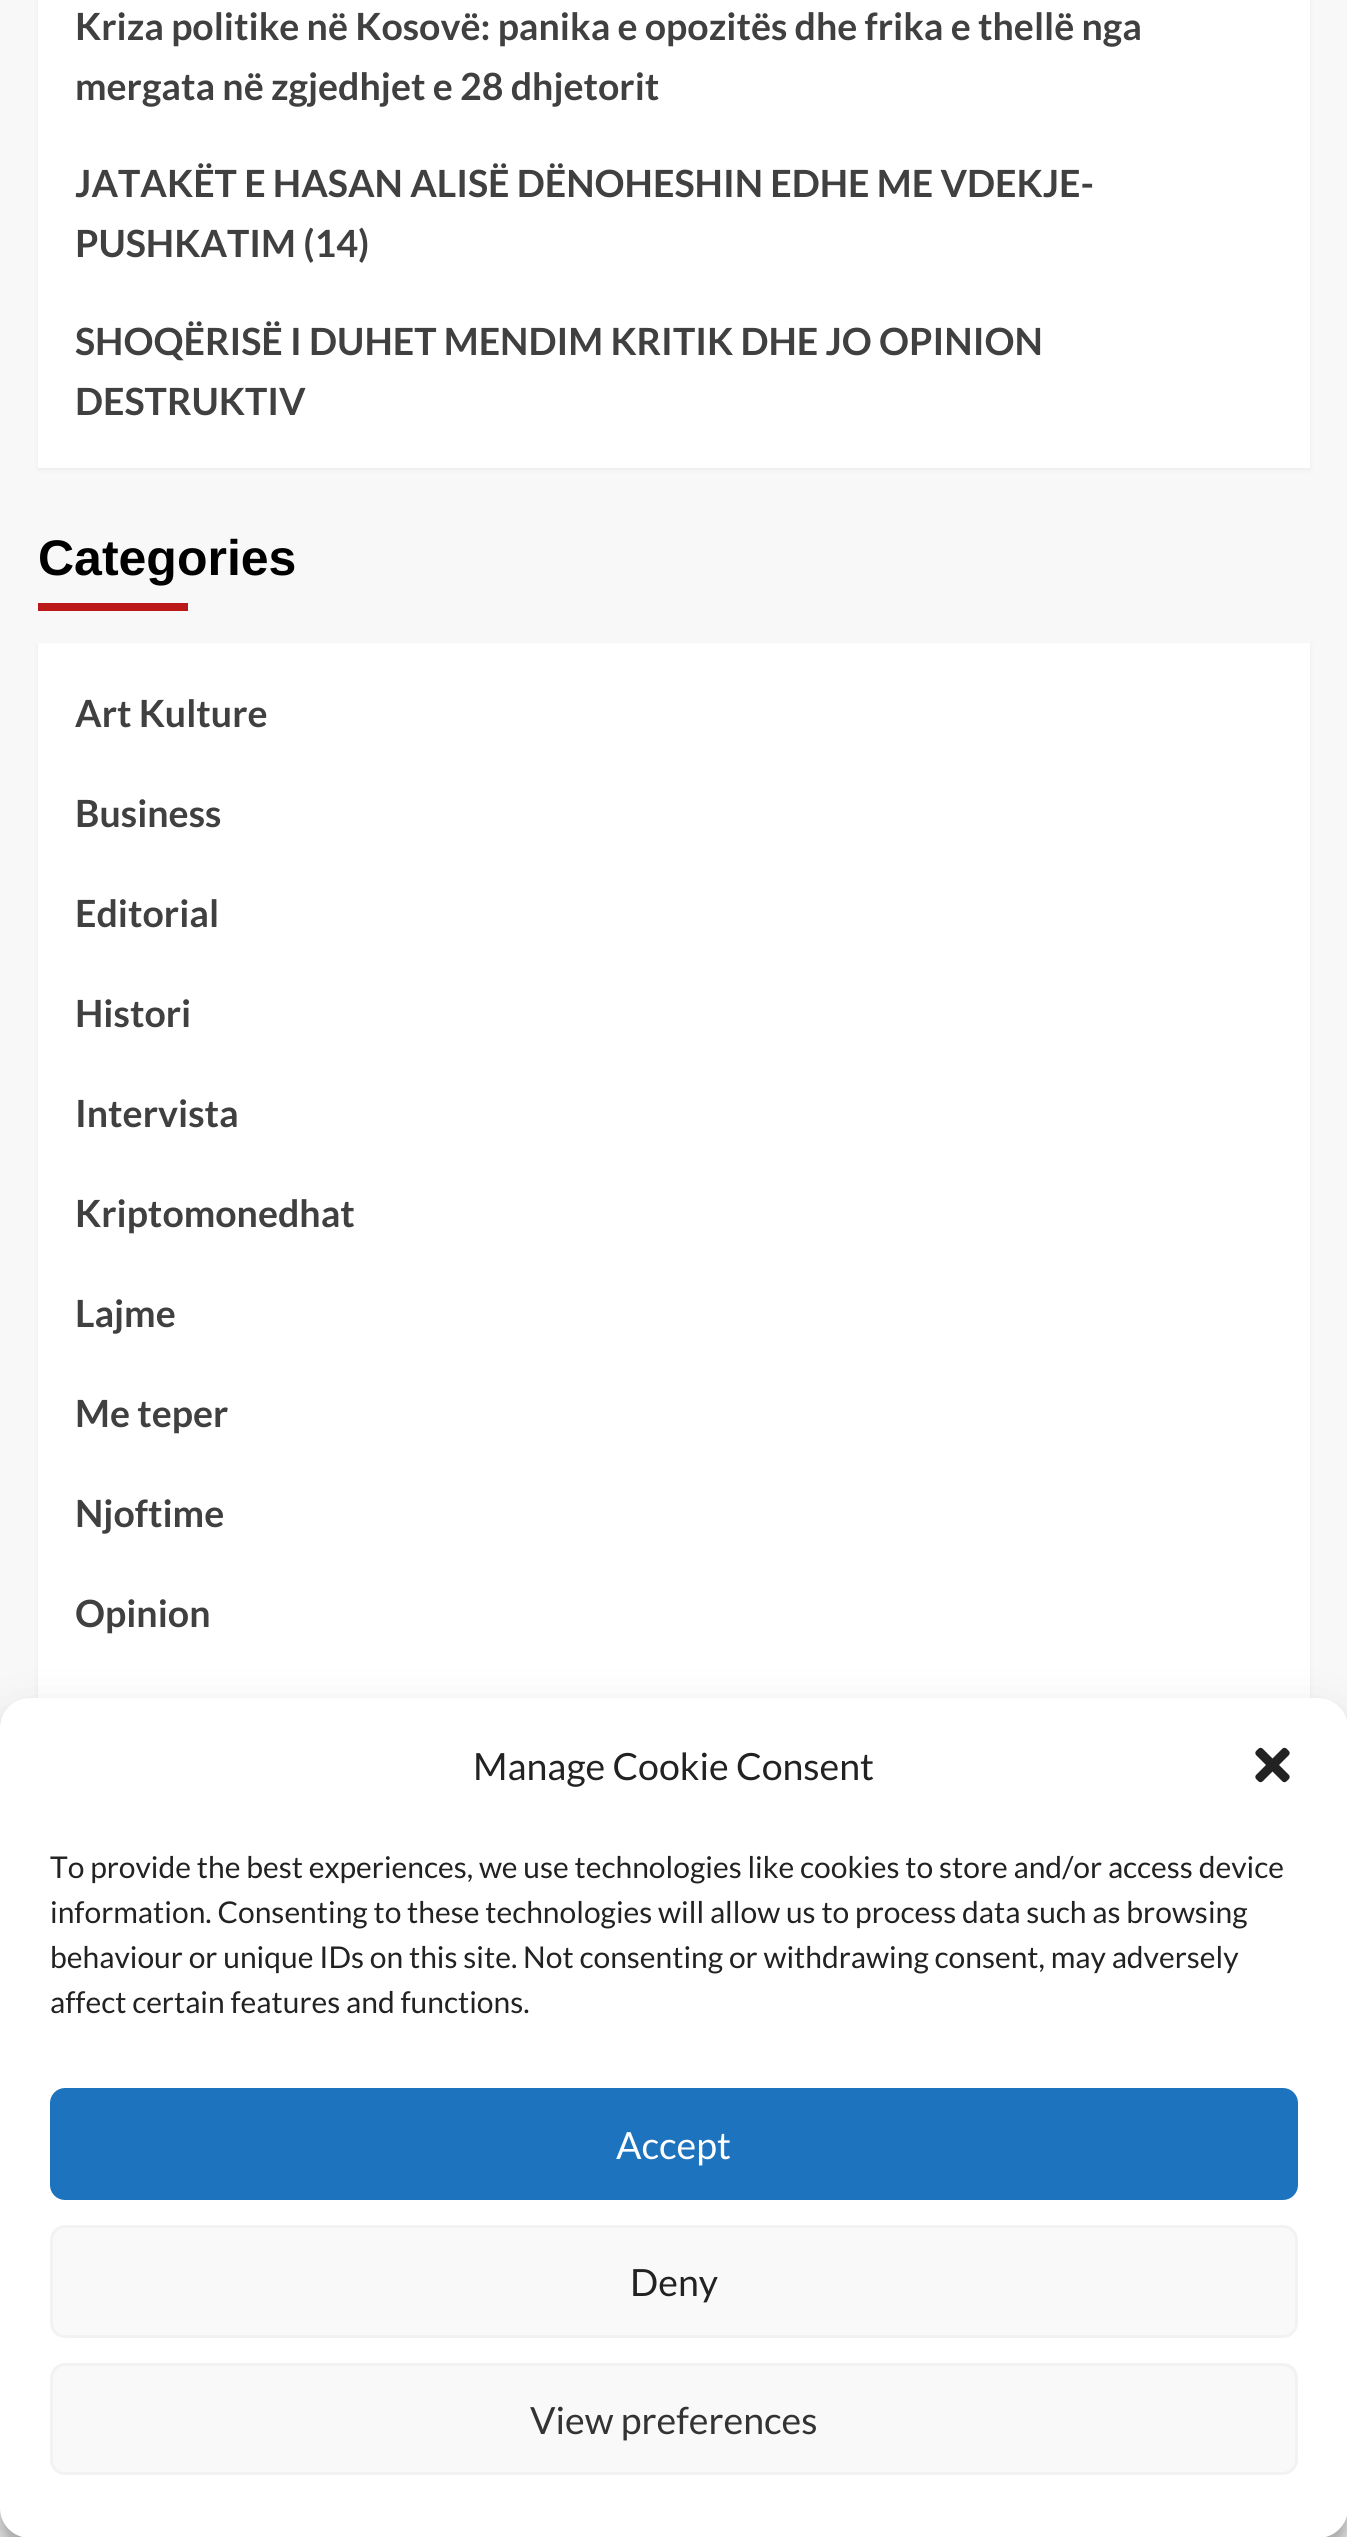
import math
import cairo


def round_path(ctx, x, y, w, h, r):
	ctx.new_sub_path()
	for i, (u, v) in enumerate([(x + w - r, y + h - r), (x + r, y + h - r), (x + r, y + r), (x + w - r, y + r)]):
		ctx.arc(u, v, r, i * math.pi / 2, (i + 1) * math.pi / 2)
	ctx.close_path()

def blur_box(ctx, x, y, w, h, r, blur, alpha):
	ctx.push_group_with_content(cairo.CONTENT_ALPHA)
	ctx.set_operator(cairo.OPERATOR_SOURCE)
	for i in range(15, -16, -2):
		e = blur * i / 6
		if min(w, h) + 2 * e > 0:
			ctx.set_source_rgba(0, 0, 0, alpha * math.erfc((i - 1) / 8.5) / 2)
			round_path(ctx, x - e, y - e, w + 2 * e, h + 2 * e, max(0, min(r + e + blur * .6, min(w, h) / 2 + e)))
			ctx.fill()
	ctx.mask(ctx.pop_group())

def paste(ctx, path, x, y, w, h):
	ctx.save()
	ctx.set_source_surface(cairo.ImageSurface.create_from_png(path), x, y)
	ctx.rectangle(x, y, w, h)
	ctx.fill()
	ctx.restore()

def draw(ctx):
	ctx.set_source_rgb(0.969, 0.969, 0.969)
	ctx.paint()
	ctx.set_source_rgb(0, 0, 0)
	blur_box(ctx, 38, -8, 1272, 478, 0, 2.5, 0.05)
	ctx.set_source_rgb(1, 1, 1)
	ctx.rectangle(38, 0, 1272, 468)
	ctx.fill()
	ctx.select_font_face('Lato', cairo.FONT_SLANT_NORMAL, cairo.FONT_WEIGHT_BOLD)
	ctx.set_font_size(37.5)
	ctx.set_source_rgb(0.251, 0.251, 0.251)
	for x, y, s in [
		(75, 40, 'Kriza politike në Kosovë: panika e opozitës dhe frika e thellë nga'),
		(75, 100, 'mergata në zgjedhjet e 28 dhjetorit'),
		(75, 197, 'JATAKËT E HASAN ALISË DËNOHESHIN EDHE ME VDEKJE-'),
		(75, 257, 'PUSHKATIM (14)'),
		(75, 355, 'SHOQËRISË I DUHET MENDIM KRITIK DHE JO OPINION'),
		(75, 415, 'DESTRUKTIV'),
	]:
		ctx.move_to(x, y)
		ctx.show_text(s)
	ctx.select_font_face('Liberation Sans', cairo.FONT_SLANT_NORMAL, cairo.FONT_WEIGHT_BOLD)
	ctx.set_font_size(50)
	ctx.set_source_rgb(0, 0, 0)
	ctx.move_to(38, 575)
	ctx.show_text('Categories')
	ctx.set_source_rgb(0.733, 0.098, 0.098)
	ctx.rectangle(38, 603, 150, 8)
	ctx.fill()
	ctx.set_source_rgb(0, 0, 0)
	blur_box(ctx, 38, 645, 1272, 1840, 0, 2.5, 0.05)
	ctx.set_source_rgb(1, 1, 1)
	ctx.rectangle(38, 643, 1272, 1055)
	ctx.fill()
	ctx.select_font_face('Lato', cairo.FONT_SLANT_NORMAL, cairo.FONT_WEIGHT_BOLD)
	ctx.set_font_size(37.5)
	ctx.set_source_rgb(0.251, 0.251, 0.251)
	for x, y, s in [
		(75, 727, 'Art Kulture'),
		(75, 827, 'Business'),
		(75, 927, 'Editorial'),
		(75, 1027, 'Histori'),
		(75, 1127, 'Intervista'),
		(75, 1227, 'Kriptomonedhat'),
		(75, 1327, 'Lajme'),
		(75, 1427, 'Me teper'),
		(75, 1527, 'Njoftime'),
		(75, 1627, 'Opinion'),
	]:
		ctx.move_to(x, y)
		ctx.show_text(s)
	ctx.set_source_rgb(0, 0, 0)
	blur_box(ctx, 0, 1713, 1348, 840, 30, 7.5, 0.23)
	blur_box(ctx, 0, 1723, 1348, 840, 30, 25, 0.19)
	ctx.set_source_rgb(1, 1, 1)
	round_path(ctx, 0, 1698, 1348, 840, 30)
	ctx.fill()
	ctx.select_font_face('Lato')
	ctx.set_source_rgb(0.133, 0.133, 0.133)
	ctx.move_to(473, 1780)
	ctx.show_text('Manage Cookie Consent')
	paste(ctx, 'media/1.png', 1255, 1747, 35, 36)
	ctx.set_font_size(30)
	for x, y, s in [
		(50, 1878, 'To provide the best experiences, we use technologies like cookies to store and/or access device'),
		(50, 1923, 'information. Consenting to these technologies will allow us to process data such as browsing'),
		(50, 1968, 'behaviour or unique IDs on this site. Not consenting or withdrawing consent, may adversely'),
		(50, 2013, 'affect certain features and functions.'),
	]:
		ctx.move_to(x, y)
		ctx.show_text(s)
	ctx.set_source_rgb(0.118, 0.451, 0.745)
	round_path(ctx, 51.5, 2089.5, 1245, 109, 13.5)
	ctx.fill_preserve()
	ctx.set_line_width(3)
	ctx.stroke()
	ctx.set_font_size(37.5)
	ctx.set_source_rgb(1, 1, 1)
	ctx.move_to(616, 2159)
	ctx.show_text('Accept')
	ctx.set_source_rgb(0.976, 0.976, 0.976)
	round_path(ctx, 51.5, 2226.5, 1245, 110, 13.5)
	ctx.fill_preserve()
	ctx.set_source_rgb(0.949, 0.949, 0.949)
	ctx.stroke()
	ctx.set_source_rgb(0.133, 0.133, 0.133)
	ctx.move_to(630, 2296)
	ctx.show_text('Deny')
	ctx.set_source_rgb(0.976, 0.976, 0.976)
	round_path(ctx, 51.5, 2364.5, 1245, 109, 13.5)
	ctx.fill_preserve()
	ctx.set_source_rgb(0.949, 0.949, 0.949)
	ctx.stroke()
	ctx.set_source_rgb(0.2, 0.2, 0.2)
	ctx.move_to(530, 2434)
	ctx.show_text('View preferences')


surface = cairo.ImageSurface(cairo.FORMAT_RGB24, 1347, 2537)
ctx = cairo.Context(surface)
options = cairo.FontOptions()
options.set_hint_metrics(cairo.HINT_METRICS_OFF)
options.set_hint_style(cairo.HINT_STYLE_NONE)
ctx.set_font_options(options)
ctx.set_miter_limit(4)
draw(ctx)
surface.write_to_png('image.png')
